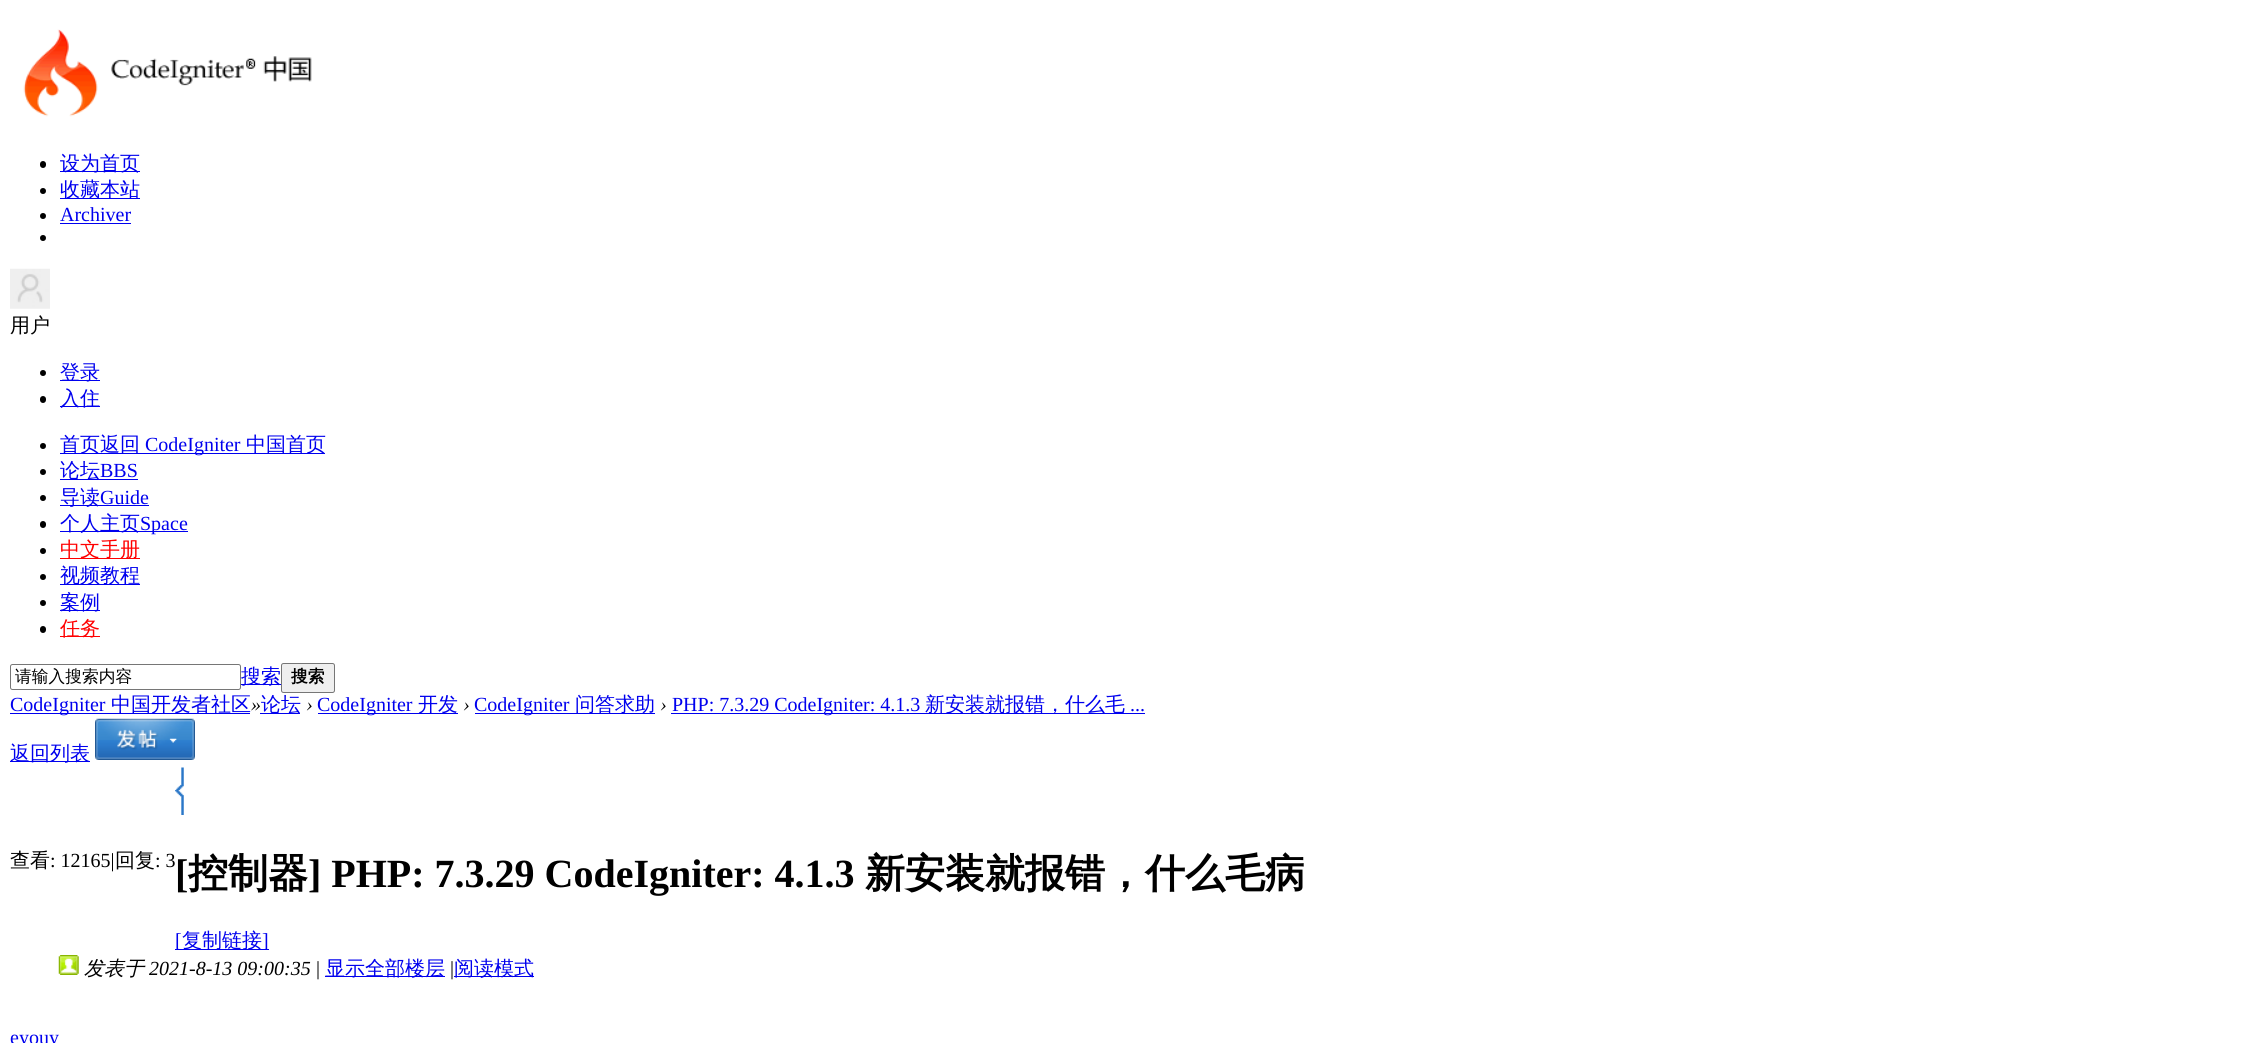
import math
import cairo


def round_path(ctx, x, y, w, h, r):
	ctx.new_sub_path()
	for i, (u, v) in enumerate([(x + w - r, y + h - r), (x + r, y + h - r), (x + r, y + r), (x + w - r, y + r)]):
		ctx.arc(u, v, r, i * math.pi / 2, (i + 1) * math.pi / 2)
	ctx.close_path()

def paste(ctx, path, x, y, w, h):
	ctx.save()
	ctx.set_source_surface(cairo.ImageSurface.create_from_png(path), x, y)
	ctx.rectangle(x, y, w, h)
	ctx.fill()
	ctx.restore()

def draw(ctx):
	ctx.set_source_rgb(1, 1, 1)
	ctx.paint()
	paste(ctx, 'media/1.png', 23, 29, 289, 88)
	ctx.set_source_rgb(0, 0, 0)
	round_path(ctx, 40, 161, 6, 7, 3)
	ctx.fill()
	ctx.set_source_rgb(0, 0, 0.933)
	ctx.rectangle(60, 171, 80, 1)
	ctx.fill()
	ctx.select_font_face('WenQuanYi Zen Hei Medium')
	ctx.set_font_size(20)
	ctx.move_to(60, 170)
	ctx.show_text('设为首页')
	ctx.set_source_rgb(0, 0, 0)
	ctx.new_path()
	ctx.arc(43, 191, 3, 0, 2 * math.pi)
	ctx.fill()
	ctx.set_source_rgb(0, 0, 0.933)
	ctx.rectangle(60, 198, 80, 1)
	ctx.fill()
	ctx.move_to(60, 196)
	ctx.show_text('收藏本站')
	ctx.set_source_rgb(0, 0, 0)
	ctx.new_path()
	ctx.arc(43, 216, 3, 0, 2 * math.pi)
	ctx.fill()
	ctx.select_font_face('Liberation Serif')
	ctx.set_source_rgb(0, 0, 0.933)
	ctx.move_to(60, 221)
	ctx.show_text('Archiver')
	ctx.rectangle(60, 223, 71, 1)
	ctx.fill()
	ctx.set_source_rgb(0, 0, 0)
	ctx.arc(43, 238, 3, 0, 2 * math.pi)
	ctx.fill()
	paste(ctx, 'media/2.png', 10, 268, 40, 41)
	ctx.select_font_face('WenQuanYi Zen Hei Medium')
	ctx.move_to(10, 332)
	ctx.show_text('用户')
	ctx.new_path()
	ctx.arc(43, 373, 3, 0, 2 * math.pi)
	ctx.fill()
	ctx.set_source_rgb(0, 0, 0.933)
	ctx.rectangle(60, 380, 40, 1)
	ctx.fill()
	ctx.move_to(60, 379)
	ctx.show_text('登录')
	ctx.set_source_rgb(0, 0, 0)
	round_path(ctx, 40, 396, 6, 7, 3)
	ctx.fill()
	ctx.set_source_rgb(0, 0, 0.933)
	ctx.rectangle(60, 406, 40, 1)
	ctx.fill()
	ctx.move_to(60, 405)
	ctx.show_text('入住')
	ctx.set_source_rgb(0, 0, 0)
	ctx.new_path()
	ctx.arc(43, 446, 3, 0, 2 * math.pi)
	ctx.fill()
	ctx.set_source_rgb(0, 0, 0.933)
	ctx.rectangle(60, 453, 265, 1)
	ctx.fill()
	ctx.move_to(60, 451)
	ctx.show_text('首页返回')
	ctx.select_font_face('Liberation Serif')
	ctx.move_to(145, 451)
	ctx.show_text('CodeIgniter')
	ctx.select_font_face('WenQuanYi Zen Hei Medium')
	ctx.move_to(246, 451)
	ctx.show_text('中国首页')
	ctx.set_source_rgb(0, 0, 0)
	ctx.new_path()
	ctx.arc(43, 472, 3, 0, 2 * math.pi)
	ctx.fill()
	ctx.set_source_rgb(0, 0, 0.933)
	ctx.rectangle(60, 479, 78, 1)
	ctx.fill()
	ctx.move_to(60, 477)
	ctx.show_text('论坛')
	ctx.select_font_face('Liberation Serif')
	ctx.move_to(100, 477)
	ctx.show_text('BBS')
	ctx.set_source_rgb(0, 0, 0)
	ctx.new_path()
	ctx.arc(43, 498, 3, 0, 2 * math.pi)
	ctx.fill()
	ctx.set_source_rgb(0, 0, 0.933)
	ctx.rectangle(60, 505, 89, 1)
	ctx.fill()
	ctx.select_font_face('WenQuanYi Zen Hei Medium')
	ctx.move_to(60, 504)
	ctx.show_text('导读')
	ctx.select_font_face('Liberation Serif')
	ctx.move_to(100, 504)
	ctx.show_text('Guide')
	ctx.set_source_rgb(0, 0, 0)
	round_path(ctx, 40, 521, 6, 7, 3)
	ctx.fill()
	ctx.set_source_rgb(0, 0, 0.933)
	ctx.rectangle(60, 531, 128, 1)
	ctx.fill()
	ctx.select_font_face('WenQuanYi Zen Hei Medium')
	ctx.move_to(60, 530)
	ctx.show_text('个人主页')
	ctx.select_font_face('Liberation Serif')
	ctx.move_to(140, 530)
	ctx.show_text('Space')
	ctx.set_source_rgb(0, 0, 0)
	ctx.new_path()
	ctx.arc(43, 551, 3, 0, 2 * math.pi)
	ctx.fill()
	ctx.set_source_rgb(1, 0, 0)
	ctx.rectangle(60, 558, 80, 1)
	ctx.fill()
	ctx.select_font_face('WenQuanYi Zen Hei Medium')
	ctx.move_to(60, 556)
	ctx.show_text('中文手册')
	ctx.set_source_rgb(0, 0, 0)
	ctx.new_path()
	ctx.arc(43, 577, 3, 0, 2 * math.pi)
	ctx.fill()
	ctx.set_source_rgb(0, 0, 0.933)
	ctx.rectangle(60, 584, 80, 1)
	ctx.fill()
	ctx.move_to(60, 582)
	ctx.show_text('视频教程')
	ctx.set_source_rgb(0, 0, 0)
	ctx.new_path()
	ctx.arc(43, 603, 3, 0, 2 * math.pi)
	ctx.fill()
	ctx.set_source_rgb(0, 0, 0.933)
	ctx.rectangle(60, 610, 40, 1)
	ctx.fill()
	ctx.move_to(60, 609)
	ctx.show_text('案例')
	ctx.set_source_rgb(0, 0, 0)
	round_path(ctx, 40, 626, 6, 7, 3)
	ctx.fill()
	ctx.set_source_rgb(1, 0, 0)
	ctx.rectangle(60, 636, 40, 1)
	ctx.fill()
	ctx.move_to(60, 635)
	ctx.show_text('任务')
	round_path(ctx, 10.5, 664.5, 230, 25, 2)
	ctx.set_source_rgb(0.463, 0.463, 0.463)
	ctx.set_line_width(1)
	ctx.stroke()
	ctx.set_font_size(16.75)
	ctx.set_source_rgb(0, 0, 0)
	ctx.move_to(15, 682)
	ctx.show_text('请输入搜索内容')
	ctx.set_source_rgb(0, 0, 0.933)
	ctx.rectangle(241, 684, 40, 1)
	ctx.fill()
	ctx.set_font_size(20)
	ctx.move_to(241, 683)
	ctx.show_text('搜索')
	ctx.set_source_rgb(0.937, 0.937, 0.937)
	round_path(ctx, 281.5, 663.5, 53, 29, 2)
	ctx.fill_preserve()
	ctx.set_source_rgb(0.463, 0.463, 0.463)
	ctx.stroke()
	ctx.select_font_face('WenQuanYi Zen Hei', cairo.FONT_SLANT_NORMAL, cairo.FONT_WEIGHT_BOLD)
	ctx.set_font_size(16.75)
	ctx.set_source_rgb(0, 0, 0)
	ctx.move_to(291, 682)
	ctx.show_text('搜索')
	ctx.set_source_rgb(0, 0, 0.933)
	ctx.rectangle(10, 713, 240, 1)
	ctx.fill()
	ctx.select_font_face('Liberation Serif')
	ctx.set_font_size(20)
	ctx.move_to(10, 711)
	ctx.show_text('CodeIgniter')
	ctx.select_font_face('WenQuanYi Zen Hei Medium')
	ctx.move_to(111, 711)
	ctx.show_text('中国开发者社区')
	ctx.select_font_face('Liberation Serif', cairo.FONT_SLANT_ITALIC)
	ctx.set_source_rgb(0, 0, 0)
	ctx.move_to(251, 711)
	ctx.show_text('»')
	ctx.set_source_rgb(0, 0, 0.933)
	ctx.rectangle(260, 713, 40, 1)
	ctx.fill()
	ctx.select_font_face('WenQuanYi Zen Hei Medium')
	ctx.move_to(261, 711)
	ctx.show_text('论坛')
	ctx.select_font_face('Liberation Serif', cairo.FONT_SLANT_ITALIC)
	ctx.set_source_rgb(0, 0, 0)
	ctx.move_to(306, 711)
	ctx.show_text('›')
	ctx.set_source_rgb(0, 0, 0.933)
	ctx.rectangle(318, 713, 140, 1)
	ctx.fill()
	ctx.select_font_face('Liberation Serif')
	ctx.move_to(317, 711)
	ctx.show_text('CodeIgniter')
	ctx.select_font_face('WenQuanYi Zen Hei Medium')
	ctx.move_to(418, 711)
	ctx.show_text('开发')
	ctx.select_font_face('Liberation Serif', cairo.FONT_SLANT_ITALIC)
	ctx.set_source_rgb(0, 0, 0)
	ctx.move_to(463, 711)
	ctx.show_text('›')
	ctx.set_source_rgb(0, 0, 0.933)
	ctx.rectangle(475, 713, 180, 1)
	ctx.fill()
	ctx.select_font_face('Liberation Serif')
	ctx.move_to(474, 711)
	ctx.show_text('CodeIgniter')
	ctx.select_font_face('WenQuanYi Zen Hei Medium')
	ctx.move_to(575, 711)
	ctx.show_text('问答求助')
	ctx.select_font_face('Liberation Serif', cairo.FONT_SLANT_ITALIC)
	ctx.set_source_rgb(0, 0, 0)
	ctx.move_to(660, 711)
	ctx.show_text('›')
	ctx.set_source_rgb(0, 0, 0.933)
	ctx.rectangle(671, 713, 474, 1)
	ctx.fill()
	ctx.select_font_face('Liberation Serif')
	ctx.move_to(672, 711)
	ctx.show_text('PHP: 7.3.29 CodeIgniter: 4.1.3')
	ctx.select_font_face('WenQuanYi Zen Hei Medium')
	ctx.move_to(925, 711)
	ctx.show_text('新安装就报错，什么毛')
	ctx.select_font_face('Liberation Serif')
	ctx.move_to(1130, 711)
	ctx.show_text('...')
	ctx.rectangle(10, 761, 80, 1)
	ctx.fill()
	ctx.select_font_face('WenQuanYi Zen Hei Medium')
	ctx.move_to(10, 760)
	ctx.show_text('返回列表')
	paste(ctx, 'media/3.png', 95, 718, 100, 42)
	ctx.set_source_rgb(0, 0, 0)
	ctx.move_to(10, 867)
	ctx.show_text('查看')
	ctx.select_font_face('Liberation Serif')
	ctx.move_to(50, 867)
	ctx.show_text(': 12165|')
	ctx.select_font_face('WenQuanYi Zen Hei Medium')
	ctx.move_to(115, 867)
	ctx.show_text('回复')
	ctx.select_font_face('Liberation Serif')
	ctx.move_to(155, 867)
	ctx.show_text(': 3')
	paste(ctx, 'media/4.png', 175, 767, 9, 48)
	ctx.select_font_face('Liberation Serif', cairo.FONT_SLANT_NORMAL, cairo.FONT_WEIGHT_BOLD)
	ctx.set_font_size(40)
	ctx.move_to(175, 887)
	ctx.show_text('[')
	ctx.select_font_face('WenQuanYi Zen Hei', cairo.FONT_SLANT_NORMAL, cairo.FONT_WEIGHT_BOLD)
	ctx.move_to(188, 887)
	ctx.show_text('控制器')
	ctx.select_font_face('Liberation Serif', cairo.FONT_SLANT_NORMAL, cairo.FONT_WEIGHT_BOLD)
	ctx.move_to(308, 887)
	ctx.show_text('] PHP: 7.3.29 CodeIgniter: 4.1.3')
	ctx.select_font_face('WenQuanYi Zen Hei', cairo.FONT_SLANT_NORMAL, cairo.FONT_WEIGHT_BOLD)
	ctx.move_to(865, 887)
	ctx.show_text('新安装就报错，什么毛病')
	ctx.set_source_rgb(0, 0, 0.933)
	ctx.rectangle(175, 949, 94, 1)
	ctx.fill()
	ctx.select_font_face('Liberation Serif')
	ctx.set_font_size(20)
	ctx.move_to(175, 947)
	ctx.show_text('[')
	ctx.select_font_face('WenQuanYi Zen Hei Medium')
	ctx.move_to(182, 947)
	ctx.show_text('复制链接')
	ctx.select_font_face('Liberation Serif')
	ctx.move_to(262, 947)
	ctx.show_text(']')
	paste(ctx, 'media/5.png', 58, 955, 21, 20)
	ctx.select_font_face('WenQuanYi Zen Hei Medium', cairo.FONT_SLANT_ITALIC)
	ctx.set_source_rgb(0, 0, 0)
	ctx.move_to(84, 975)
	ctx.show_text('发表于')
	ctx.select_font_face('Liberation Serif', cairo.FONT_SLANT_ITALIC)
	ctx.move_to(149, 975)
	ctx.show_text('2021-8-13 09:00:35')
	ctx.select_font_face('Liberation Serif')
	ctx.move_to(316, 975)
	ctx.show_text('|')
	ctx.set_source_rgb(0, 0, 0.933)
	ctx.rectangle(325, 976, 120, 1)
	ctx.fill()
	ctx.select_font_face('WenQuanYi Zen Hei Medium')
	ctx.move_to(325, 975)
	ctx.show_text('显示全部楼层')
	ctx.select_font_face('Liberation Serif')
	ctx.set_source_rgb(0, 0, 0)
	ctx.move_to(450, 975)
	ctx.show_text('|')
	ctx.set_source_rgb(0, 0, 0.933)
	ctx.rectangle(454, 976, 80, 1)
	ctx.fill()
	ctx.select_font_face('WenQuanYi Zen Hei Medium')
	ctx.move_to(454, 975)
	ctx.show_text('阅读模式')
	ctx.select_font_face('Liberation Serif')
	ctx.move_to(10, 1044)
	ctx.show_text('eyouy')


surface = cairo.ImageSurface(cairo.FORMAT_RGB24, 2258, 1043)
ctx = cairo.Context(surface)
options = cairo.FontOptions()
options.set_hint_metrics(cairo.HINT_METRICS_OFF)
options.set_hint_style(cairo.HINT_STYLE_NONE)
ctx.set_font_options(options)
ctx.set_miter_limit(4)
draw(ctx)
surface.write_to_png('image.png')
